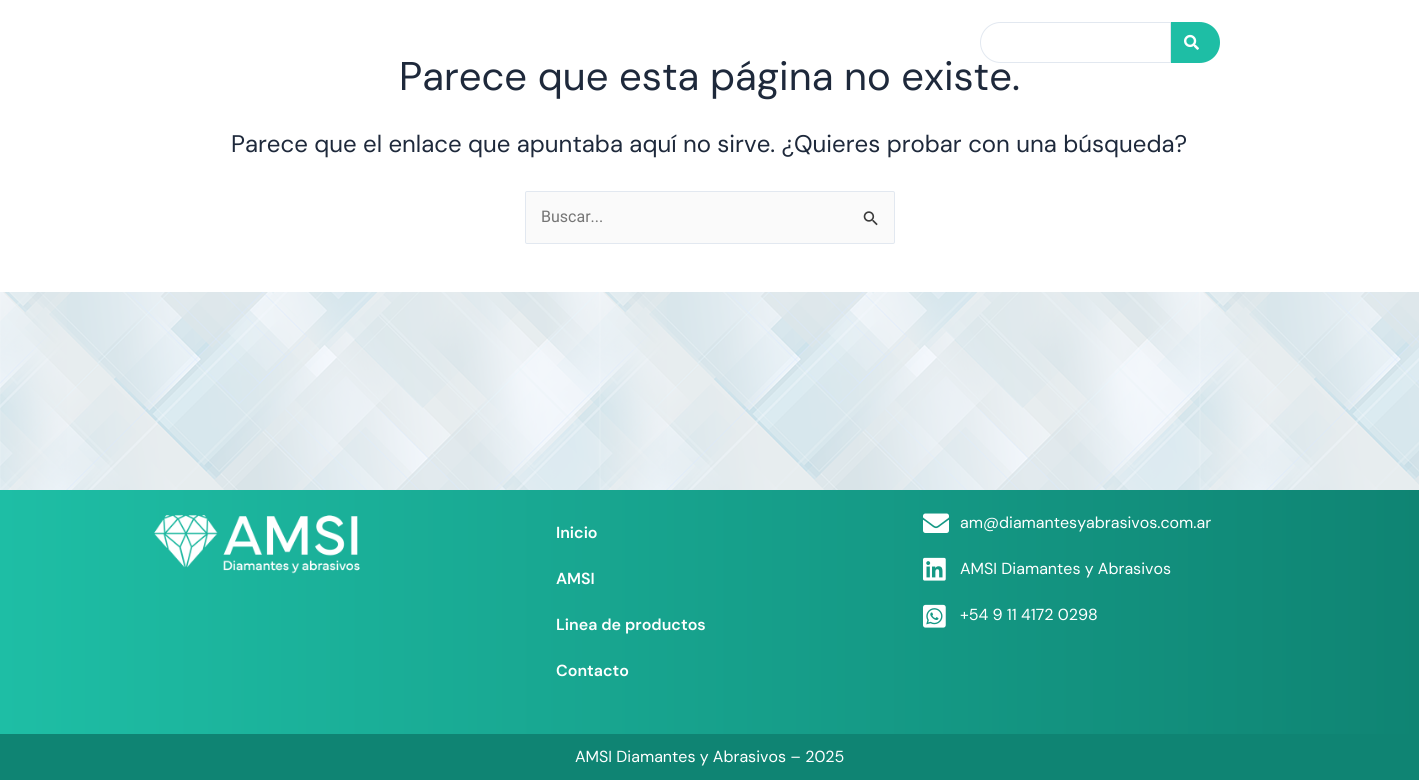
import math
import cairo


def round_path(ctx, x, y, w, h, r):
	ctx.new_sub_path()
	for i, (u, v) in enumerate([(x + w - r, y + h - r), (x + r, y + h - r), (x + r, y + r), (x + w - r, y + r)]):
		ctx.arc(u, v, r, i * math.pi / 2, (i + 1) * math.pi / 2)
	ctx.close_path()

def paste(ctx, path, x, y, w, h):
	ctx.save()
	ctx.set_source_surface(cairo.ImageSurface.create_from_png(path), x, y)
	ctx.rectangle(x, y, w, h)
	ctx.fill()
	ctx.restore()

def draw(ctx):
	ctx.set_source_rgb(1, 1, 1)
	ctx.paint()
	paste(ctx, 'media/1.png', 0, 292, 1419, 198)
	ctx.select_font_face('DM Sans')
	ctx.set_font_size(40)
	ctx.set_source_rgb(0.118, 0.161, 0.231)
	ctx.move_to(399, 90)
	ctx.show_text('Parece que esta página no existe.')
	ctx.new_path()
	ctx.move_to(1000.5, 22.5)
	ctx.line_to(1170.5, 22.5)
	ctx.line_to(1170.5, 62.5)
	ctx.line_to(1000.5, 62.5)
	ctx.curve_to(989.5, 62.5, 980.5, 53.5, 980.5, 42.5)
	ctx.curve_to(980.5, 31.5, 989.5, 22.5, 1000.5, 22.5)
	ctx.close_path()
	ctx.set_source_rgb(0.886, 0.91, 0.941)
	ctx.set_line_width(1)
	ctx.stroke()
	ctx.set_source_rgb(0.118, 0.745, 0.647)
	ctx.new_path()
	ctx.move_to(1171, 22)
	ctx.line_to(1199.5, 22)
	ctx.curve_to(1211, 22, 1220, 31, 1220, 42.5)
	ctx.curve_to(1220, 54, 1211, 63, 1199.5, 63)
	ctx.line_to(1171, 63)
	ctx.close_path()
	ctx.fill()
	paste(ctx, 'media/2.png', 1184, 34, 15, 16)
	ctx.set_font_size(24)
	ctx.set_source_rgb(0.118, 0.161, 0.231)
	ctx.move_to(231, 152)
	ctx.show_text('Parece que el enlace que apuntaba aquí no sirve. ¿Quieres probar con una búsqueda?')
	ctx.set_source_rgb(0.98, 0.98, 0.98)
	round_path(ctx, 525.5, 191.5, 369, 52, 1.5)
	ctx.fill_preserve()
	ctx.set_source_rgb(0.886, 0.91, 0.941)
	ctx.stroke()
	ctx.select_font_face('Roboto')
	ctx.set_font_size(16)
	ctx.set_source_rgb(0.459, 0.459, 0.459)
	ctx.move_to(541, 222)
	ctx.show_text('Buscar...')
	paste(ctx, 'media/3.png', 863, 211, 15, 15)
	gradient = cairo.LinearGradient(0, 635, 1419, 635)
	gradient.add_color_stop_rgba(0, 0.118, 0.745, 0.647, 1)
	gradient.add_color_stop_rgba(1, 0.059, 0.518, 0.451, 1)
	ctx.set_source(gradient)
	ctx.rectangle(0, 490, 1419, 244)
	ctx.fill()
	paste(ctx, 'media/4.png', 154, 515, 206, 59)
	ctx.select_font_face('DM Sans SemiBold')
	ctx.set_source_rgb(1, 1, 1)
	for x, y, s in [
		(556, 538, 'Inicio'),
		(556, 584, 'AMSI'),
		(556, 630, 'Linea de productos'),
		(556, 676, 'Contacto'),
	]:
		ctx.move_to(x, y)
		ctx.show_text(s)
	paste(ctx, 'media/5.png', 923, 513, 26, 20)
	ctx.select_font_face('DM Sans')
	ctx.move_to(960, 528)
	ctx.show_text('am@diamantesyabrasivos.com.ar')
	paste(ctx, 'media/6.png', 923, 557, 23, 24)
	ctx.move_to(960, 574)
	ctx.show_text('AMSI Diamantes y Abrasivos')
	paste(ctx, 'media/7.png', 923, 604, 23, 24)
	ctx.move_to(960, 620)
	ctx.show_text('+54 9 11 4172 0298')
	ctx.set_source_rgb(0.059, 0.518, 0.451)
	ctx.rectangle(0, 734, 1419, 46)
	ctx.fill()
	ctx.set_source_rgb(1, 1, 1)
	ctx.move_to(575, 762)
	ctx.show_text('AMSI Diamantes y Abrasivos – 2025')


surface = cairo.ImageSurface(cairo.FORMAT_RGB24, 1419, 780)
ctx = cairo.Context(surface)
options = cairo.FontOptions()
options.set_hint_metrics(cairo.HINT_METRICS_OFF)
options.set_hint_style(cairo.HINT_STYLE_NONE)
ctx.set_font_options(options)
ctx.set_miter_limit(4)
draw(ctx)
surface.write_to_png('image.png')
